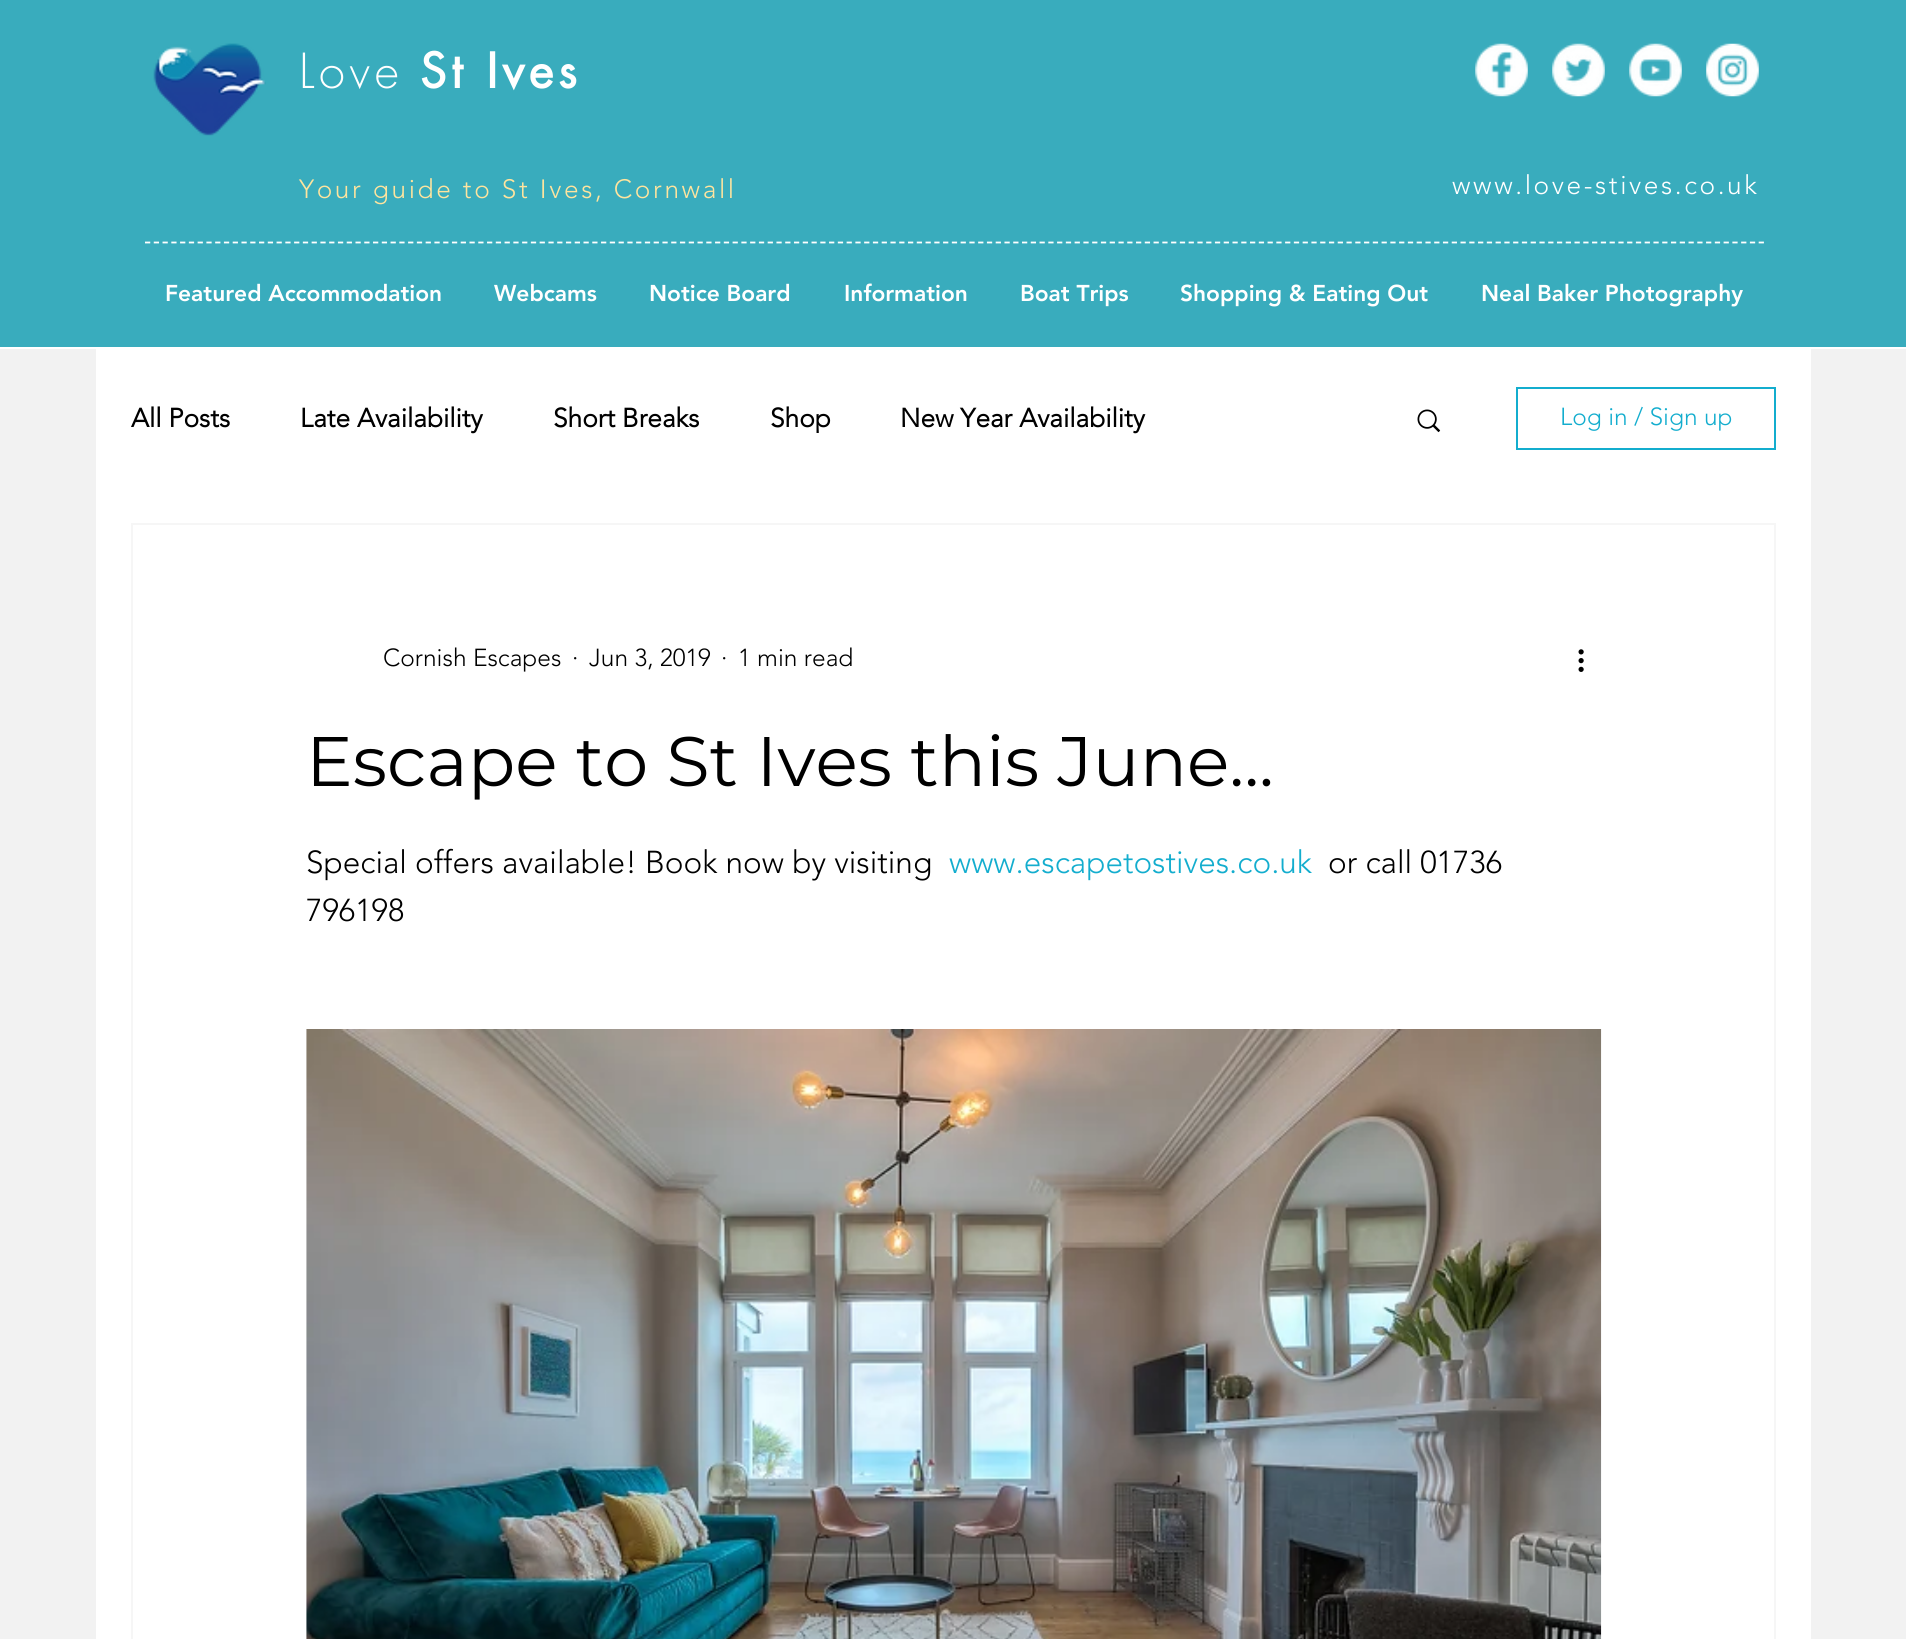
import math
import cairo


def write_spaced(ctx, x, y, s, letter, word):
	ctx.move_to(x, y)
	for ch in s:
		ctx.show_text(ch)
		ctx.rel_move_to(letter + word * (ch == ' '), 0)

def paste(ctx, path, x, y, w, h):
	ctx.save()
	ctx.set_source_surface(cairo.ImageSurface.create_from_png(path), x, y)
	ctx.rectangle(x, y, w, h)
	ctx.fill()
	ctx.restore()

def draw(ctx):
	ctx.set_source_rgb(0.949, 0.949, 0.949)
	ctx.paint()
	ctx.set_source_rgb(0.224, 0.675, 0.741)
	ctx.rectangle(0, 0, 1906, 347)
	ctx.fill()
	ctx.set_source_rgb(1, 1, 1)
	ctx.rectangle(0, 347, 1906, 2)
	ctx.fill()
	paste(ctx, 'media/1.png', 153, 43, 113, 93)
	ctx.select_font_face('futura Light')
	ctx.set_font_size(47)
	write_spaced(ctx, 299, 88, 'Love', 4.75, 0)
	ctx.select_font_face('futura', cairo.FONT_SLANT_NORMAL, cairo.FONT_WEIGHT_BOLD)
	write_spaced(ctx, 420, 88, 'St Ives', 4.75, 0)
	paste(ctx, 'media/2.png', 1475, 43, 53, 54)
	paste(ctx, 'media/3.png', 1552, 43, 53, 54)
	paste(ctx, 'media/4.png', 1629, 43, 53, 54)
	paste(ctx, 'media/5.png', 1706, 43, 53, 54)
	ctx.select_font_face('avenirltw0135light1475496 Light')
	ctx.set_font_size(26.25)
	ctx.set_source_rgb(1, 0.894, 0.62)
	write_spaced(ctx, 299, 198, 'Your guide to St Ives, Cornwall', 2.6, 0)
	ctx.set_source_rgb(1, 1, 1)
	write_spaced(ctx, 1452, 194, 'www.love-stives.co.uk', 2.6, 0)
	ctx.new_path()
	ctx.move_to(145, 242.5)
	ctx.line_to(1764, 242.5)
	ctx.set_line_width(1.8)
	ctx.set_dash([5.25, 3.52])
	ctx.stroke()
	ctx.select_font_face('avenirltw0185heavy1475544 Black')
	ctx.set_font_size(22.75)
	for x, y, s in [
		(165, 301, 'Featured Accommodation'),
		(494, 301, 'Webcams'),
		(649, 301, 'Notice Board'),
		(844, 301, 'Information'),
		(1020, 301, 'Boat Trips'),
		(1180, 301, 'Shopping & Eating Out'),
		(1481, 301, 'Neal Baker Photography'),
	]:
		ctx.move_to(x, y)
		ctx.show_text(s)
	ctx.rectangle(96, 349, 1715, 1290)
	ctx.fill()
	ctx.select_font_face('avenirltw0135light1475496', cairo.FONT_SLANT_NORMAL, cairo.FONT_WEIGHT_BOLD)
	ctx.set_font_size(26.25)
	ctx.set_source_rgb(0, 0, 0)
	for x, y, s in [
		(131, 427, 'All Posts'),
		(300, 427, 'Late Availability'),
		(553, 427, 'Short Breaks'),
		(770, 427, 'Shop'),
		(900, 427, 'New Year Availability'),
	]:
		ctx.move_to(x, y)
		ctx.show_text(s)
	paste(ctx, 'media/6.png', 1417, 409, 24, 24)
	ctx.rectangle(1517, 388, 258, 61)
	ctx.set_source_rgb(0.078, 0.678, 0.808)
	ctx.set_line_width(2)
	ctx.set_dash([])
	ctx.stroke()
	ctx.select_font_face('avenirltw0135light1475496 Light')
	ctx.set_font_size(24.5)
	ctx.move_to(1560, 425)
	ctx.show_text('Log in / Sign up')
	ctx.rectangle(132, 524, 1643, 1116)
	ctx.set_source_rgb(0.961, 0.961, 0.961)
	ctx.stroke()
	ctx.set_source_rgb(0, 0, 0)
	for x, y, s in [
		(383, 666, 'Cornish Escapes'),
		(572, 666, '·'),
		(589, 666, 'Jun 3, 2019'),
		(721, 666, '·'),
		(738, 666, '1 min read'),
	]:
		ctx.move_to(x, y)
		ctx.show_text(s)
	paste(ctx, 'media/7.png', 1578, 649, 6, 23)
	ctx.select_font_face('Montserrat')
	ctx.set_font_size(70)
	ctx.move_to(306, 786)
	ctx.show_text('Escape to St Ives this June...')
	ctx.select_font_face('avenirltw0135light1475496 Light')
	ctx.set_font_size(31.5)
	ctx.move_to(306, 873)
	ctx.show_text('Special offers available! Book now by visiting')
	ctx.set_source_rgb(0.078, 0.678, 0.808)
	ctx.move_to(949, 873)
	ctx.show_text('www.escapetostives.co.uk')
	ctx.set_source_rgb(0, 0, 0)
	ctx.move_to(1328, 873)
	ctx.show_text('or call 01736')
	ctx.move_to(306, 921)
	ctx.show_text('796198')
	paste(ctx, 'media/8.png', 306, 1029, 1296, 610)


surface = cairo.ImageSurface(cairo.FORMAT_RGB24, 1906, 1639)
ctx = cairo.Context(surface)
options = cairo.FontOptions()
options.set_hint_metrics(cairo.HINT_METRICS_OFF)
options.set_hint_style(cairo.HINT_STYLE_NONE)
ctx.set_font_options(options)
ctx.set_miter_limit(4)
draw(ctx)
surface.write_to_png('image.png')
